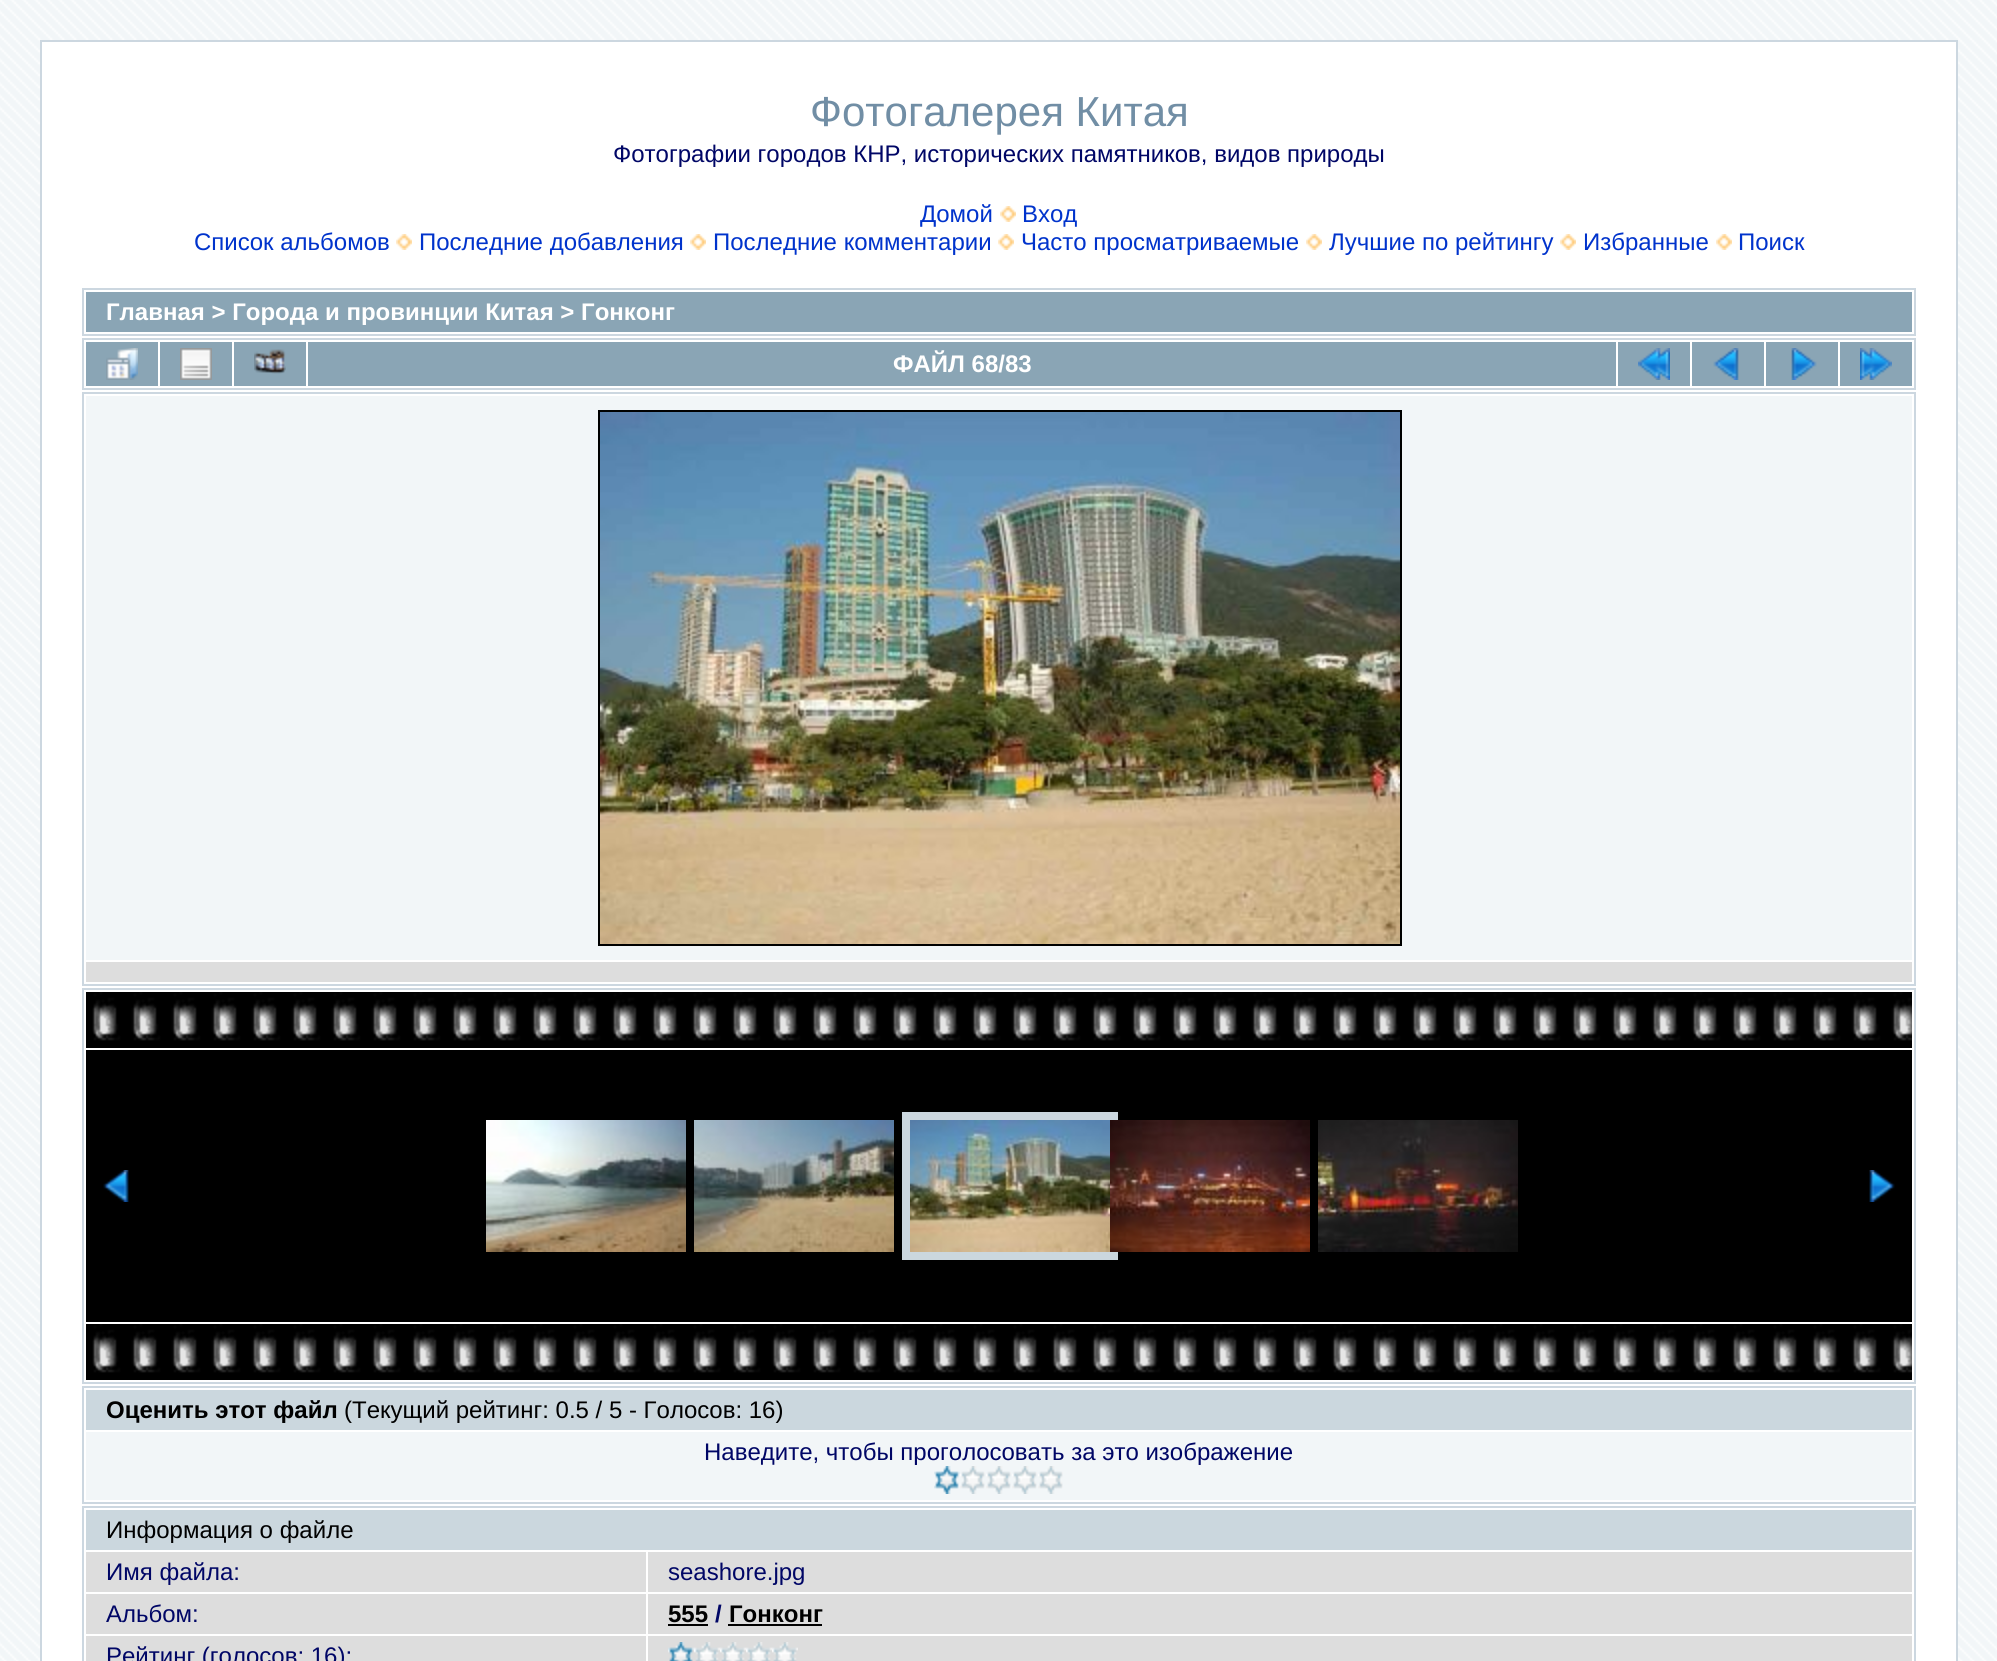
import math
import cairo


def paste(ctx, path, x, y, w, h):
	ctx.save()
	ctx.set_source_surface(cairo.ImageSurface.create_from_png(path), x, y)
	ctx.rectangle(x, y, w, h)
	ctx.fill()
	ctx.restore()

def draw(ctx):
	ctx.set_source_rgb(0.949, 0.961, 0.969)
	ctx.paint()
	paste(ctx, 'media/1.png', 0, 0, 1997, 1661)
	ctx.set_source_rgb(1, 1, 1)
	ctx.rectangle(41, 41, 1916, 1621)
	ctx.fill_preserve()
	ctx.set_source_rgb(0.8, 0.843, 0.878)
	ctx.stroke()
	ctx.select_font_face('Liberation Sans')
	ctx.set_font_size(42)
	ctx.set_source_rgb(0.443, 0.557, 0.647)
	ctx.move_to(810, 126)
	ctx.show_text('Фотогалерея Китая')
	ctx.set_font_size(24)
	ctx.set_source_rgb(0, 0.024, 0.4)
	ctx.move_to(613, 162)
	ctx.show_text('Фотографии городов КНР, исторических памятников, видов природы')
	ctx.set_source_rgb(0, 0.2, 0.8)
	ctx.move_to(920, 222)
	ctx.show_text('Домой')
	paste(ctx, 'media/2.png', 1000, 206, 16, 16)
	ctx.move_to(1022, 222)
	ctx.show_text('Вход')
	ctx.move_to(194, 250)
	ctx.show_text('Список альбомов')
	paste(ctx, 'media/2.png', 396, 234, 16, 16)
	ctx.move_to(419, 250)
	ctx.show_text('Последние добавления')
	paste(ctx, 'media/2.png', 690, 234, 16, 16)
	ctx.move_to(713, 250)
	ctx.show_text('Последние комментарии')
	paste(ctx, 'media/2.png', 998, 234, 16, 16)
	ctx.move_to(1021, 250)
	ctx.show_text('Часто просматриваемые')
	paste(ctx, 'media/2.png', 1306, 234, 16, 16)
	ctx.move_to(1329, 250)
	ctx.show_text('Лучшие по рейтингу')
	paste(ctx, 'media/2.png', 1560, 234, 16, 16)
	ctx.move_to(1583, 250)
	ctx.show_text('Избранные')
	paste(ctx, 'media/2.png', 1716, 234, 16, 16)
	ctx.move_to(1738, 250)
	ctx.show_text('Поиск')
	ctx.rectangle(83, 289, 1832, 46)
	ctx.set_source_rgb(0.8, 0.843, 0.878)
	ctx.stroke()
	ctx.set_source_rgb(0.541, 0.647, 0.71)
	ctx.rectangle(86, 292, 1826, 40)
	ctx.fill()
	ctx.select_font_face('Liberation Sans', cairo.FONT_SLANT_NORMAL, cairo.FONT_WEIGHT_BOLD)
	ctx.set_source_rgb(1, 1, 1)
	ctx.move_to(106, 320)
	ctx.show_text('Главная > Города и провинции Китая > Гонконг')
	ctx.rectangle(83, 339, 1832, 50)
	ctx.set_source_rgb(0.8, 0.843, 0.878)
	ctx.stroke()
	ctx.set_source_rgb(0.541, 0.647, 0.71)
	ctx.rectangle(86, 342, 72, 44)
	ctx.fill()
	paste(ctx, 'media/3.png', 106, 348, 32, 32)
	ctx.rectangle(160, 342, 72, 44)
	ctx.fill()
	paste(ctx, 'media/4.png', 180, 348, 32, 32)
	ctx.rectangle(234, 342, 72, 44)
	ctx.fill()
	paste(ctx, 'media/5.png', 254, 349, 32, 25)
	ctx.rectangle(308, 342, 1308, 44)
	ctx.fill()
	ctx.set_source_rgb(1, 1, 1)
	ctx.move_to(893, 372)
	ctx.show_text('ФАЙЛ 68/83')
	ctx.set_source_rgb(0.541, 0.647, 0.71)
	ctx.rectangle(1618, 342, 72, 44)
	ctx.fill()
	paste(ctx, 'media/6.png', 1638, 348, 32, 32)
	ctx.rectangle(1692, 342, 72, 44)
	ctx.fill()
	paste(ctx, 'media/7.png', 1713, 348, 26, 32)
	ctx.rectangle(1766, 342, 72, 44)
	ctx.fill()
	paste(ctx, 'media/8.png', 1791, 348, 26, 32)
	ctx.rectangle(1840, 342, 72, 44)
	ctx.fill()
	paste(ctx, 'media/9.png', 1860, 348, 32, 32)
	ctx.rectangle(83, 393, 1832, 592)
	ctx.set_source_rgb(0.8, 0.843, 0.878)
	ctx.stroke()
	ctx.set_source_rgb(0.949, 0.961, 0.969)
	ctx.rectangle(86, 396, 1826, 564)
	ctx.fill()
	ctx.rectangle(599, 411, 802, 534)
	ctx.set_source_rgb(0, 0, 0)
	ctx.stroke()
	paste(ctx, 'media/10.png', 600, 412, 800, 532)
	ctx.set_source_rgb(0.867, 0.867, 0.867)
	ctx.rectangle(86, 962, 1826, 20)
	ctx.fill()
	ctx.rectangle(83, 989, 1832, 394)
	ctx.set_source_rgb(0.8, 0.843, 0.878)
	ctx.stroke()
	ctx.set_source_rgb(0, 0, 0)
	ctx.rectangle(86, 992, 1826, 56)
	ctx.fill()
	paste(ctx, 'media/11.png', 92, 992, 1820, 49)
	ctx.rectangle(86, 1050, 1826, 272)
	ctx.fill()
	paste(ctx, 'media/12.png', 103, 1170, 26, 32)
	paste(ctx, 'media/13.png', 486, 1120, 200, 132)
	paste(ctx, 'media/14.png', 694, 1120, 200, 132)
	ctx.rectangle(906, 1116, 208, 140)
	ctx.set_source_rgb(0.796, 0.843, 0.871)
	ctx.set_line_width(8)
	ctx.stroke()
	paste(ctx, 'media/15.png', 910, 1120, 200, 132)
	paste(ctx, 'media/16.png', 1110, 1120, 200, 132)
	paste(ctx, 'media/17.png', 1318, 1120, 200, 132)
	paste(ctx, 'media/18.png', 1869, 1170, 26, 32)
	ctx.set_source_rgb(0, 0, 0)
	ctx.rectangle(86, 1324, 1826, 56)
	ctx.fill()
	paste(ctx, 'media/11.png', 92, 1324, 1820, 49)
	ctx.rectangle(83, 1387, 1832, 116)
	ctx.set_source_rgb(0.8, 0.843, 0.878)
	ctx.set_line_width(2)
	ctx.stroke()
	ctx.set_source_rgb(0.796, 0.843, 0.871)
	ctx.rectangle(86, 1390, 1826, 40)
	ctx.fill()
	ctx.set_source_rgb(0, 0, 0)
	ctx.move_to(106, 1418)
	ctx.show_text('Оценить этот файл')
	ctx.select_font_face('Liberation Sans')
	ctx.move_to(344, 1418)
	ctx.show_text('(Текущий рейтинг: 0.5 / 5 - Голосов: 16)')
	ctx.set_source_rgb(0.949, 0.961, 0.969)
	ctx.rectangle(86, 1432, 1826, 68)
	ctx.fill()
	ctx.set_source_rgb(0, 0.024, 0.4)
	ctx.move_to(704, 1460)
	ctx.show_text('Наведите, чтобы проголосовать за это изображение')
	paste(ctx, 'media/19.png', 934, 1466, 26, 28)
	paste(ctx, 'media/20.png', 960, 1466, 25, 28)
	paste(ctx, 'media/20.png', 986, 1466, 25, 28)
	paste(ctx, 'media/20.png', 1012, 1466, 25, 28)
	paste(ctx, 'media/20.png', 1038, 1466, 25, 28)
	ctx.rectangle(83, 1507, 1832, 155)
	ctx.set_source_rgb(0.8, 0.843, 0.878)
	ctx.stroke()
	ctx.set_source_rgb(0.796, 0.843, 0.871)
	ctx.rectangle(86, 1510, 1826, 40)
	ctx.fill()
	ctx.set_source_rgb(0, 0, 0)
	ctx.move_to(106, 1538)
	ctx.show_text('Информация о файле')
	ctx.set_source_rgb(0.867, 0.867, 0.867)
	ctx.rectangle(86, 1552, 560, 40)
	ctx.fill()
	ctx.set_source_rgb(0, 0.024, 0.4)
	ctx.move_to(106, 1580)
	ctx.show_text('Имя файла:')
	ctx.set_source_rgb(0.867, 0.867, 0.867)
	ctx.rectangle(648, 1552, 1264, 40)
	ctx.fill()
	ctx.set_source_rgb(0, 0.024, 0.4)
	ctx.move_to(668, 1580)
	ctx.show_text('seashore.jpg')
	ctx.set_source_rgb(0.867, 0.867, 0.867)
	ctx.rectangle(86, 1594, 560, 40)
	ctx.fill()
	ctx.set_source_rgb(0, 0.024, 0.4)
	ctx.move_to(106, 1622)
	ctx.show_text('Альбом:')
	ctx.set_source_rgb(0.867, 0.867, 0.867)
	ctx.rectangle(648, 1594, 1264, 40)
	ctx.fill()
	ctx.select_font_face('Liberation Sans', cairo.FONT_SLANT_NORMAL, cairo.FONT_WEIGHT_BOLD)
	ctx.set_source_rgb(0, 0, 0)
	ctx.move_to(668, 1622)
	ctx.show_text('555')
	ctx.rectangle(668, 1624, 40, 2)
	ctx.fill()
	ctx.set_source_rgb(0, 0.024, 0.4)
	ctx.move_to(715, 1622)
	ctx.show_text('/')
	ctx.set_source_rgb(0, 0, 0)
	ctx.move_to(729, 1622)
	ctx.show_text('Гонконг')
	ctx.rectangle(728, 1624, 94, 2)
	ctx.fill()
	ctx.set_source_rgb(0.867, 0.867, 0.867)
	ctx.rectangle(86, 1636, 560, 25)
	ctx.fill()
	ctx.select_font_face('Liberation Sans')
	ctx.set_source_rgb(0, 0.024, 0.4)
	ctx.move_to(106, 1664)
	ctx.show_text('Рейтинг (голосов: 16):')
	ctx.set_source_rgb(0.867, 0.867, 0.867)
	ctx.rectangle(648, 1636, 1264, 25)
	ctx.fill()
	paste(ctx, 'media/21.png', 668, 1642, 26, 19)
	paste(ctx, 'media/22.png', 694, 1642, 26, 19)
	paste(ctx, 'media/22.png', 720, 1642, 26, 19)
	paste(ctx, 'media/22.png', 746, 1642, 26, 19)
	paste(ctx, 'media/22.png', 772, 1642, 26, 19)


surface = cairo.ImageSurface(cairo.FORMAT_RGB24, 1997, 1661)
ctx = cairo.Context(surface)
options = cairo.FontOptions()
options.set_hint_metrics(cairo.HINT_METRICS_OFF)
options.set_hint_style(cairo.HINT_STYLE_NONE)
ctx.set_font_options(options)
ctx.set_miter_limit(4)
draw(ctx)
surface.write_to_png('image.png')
